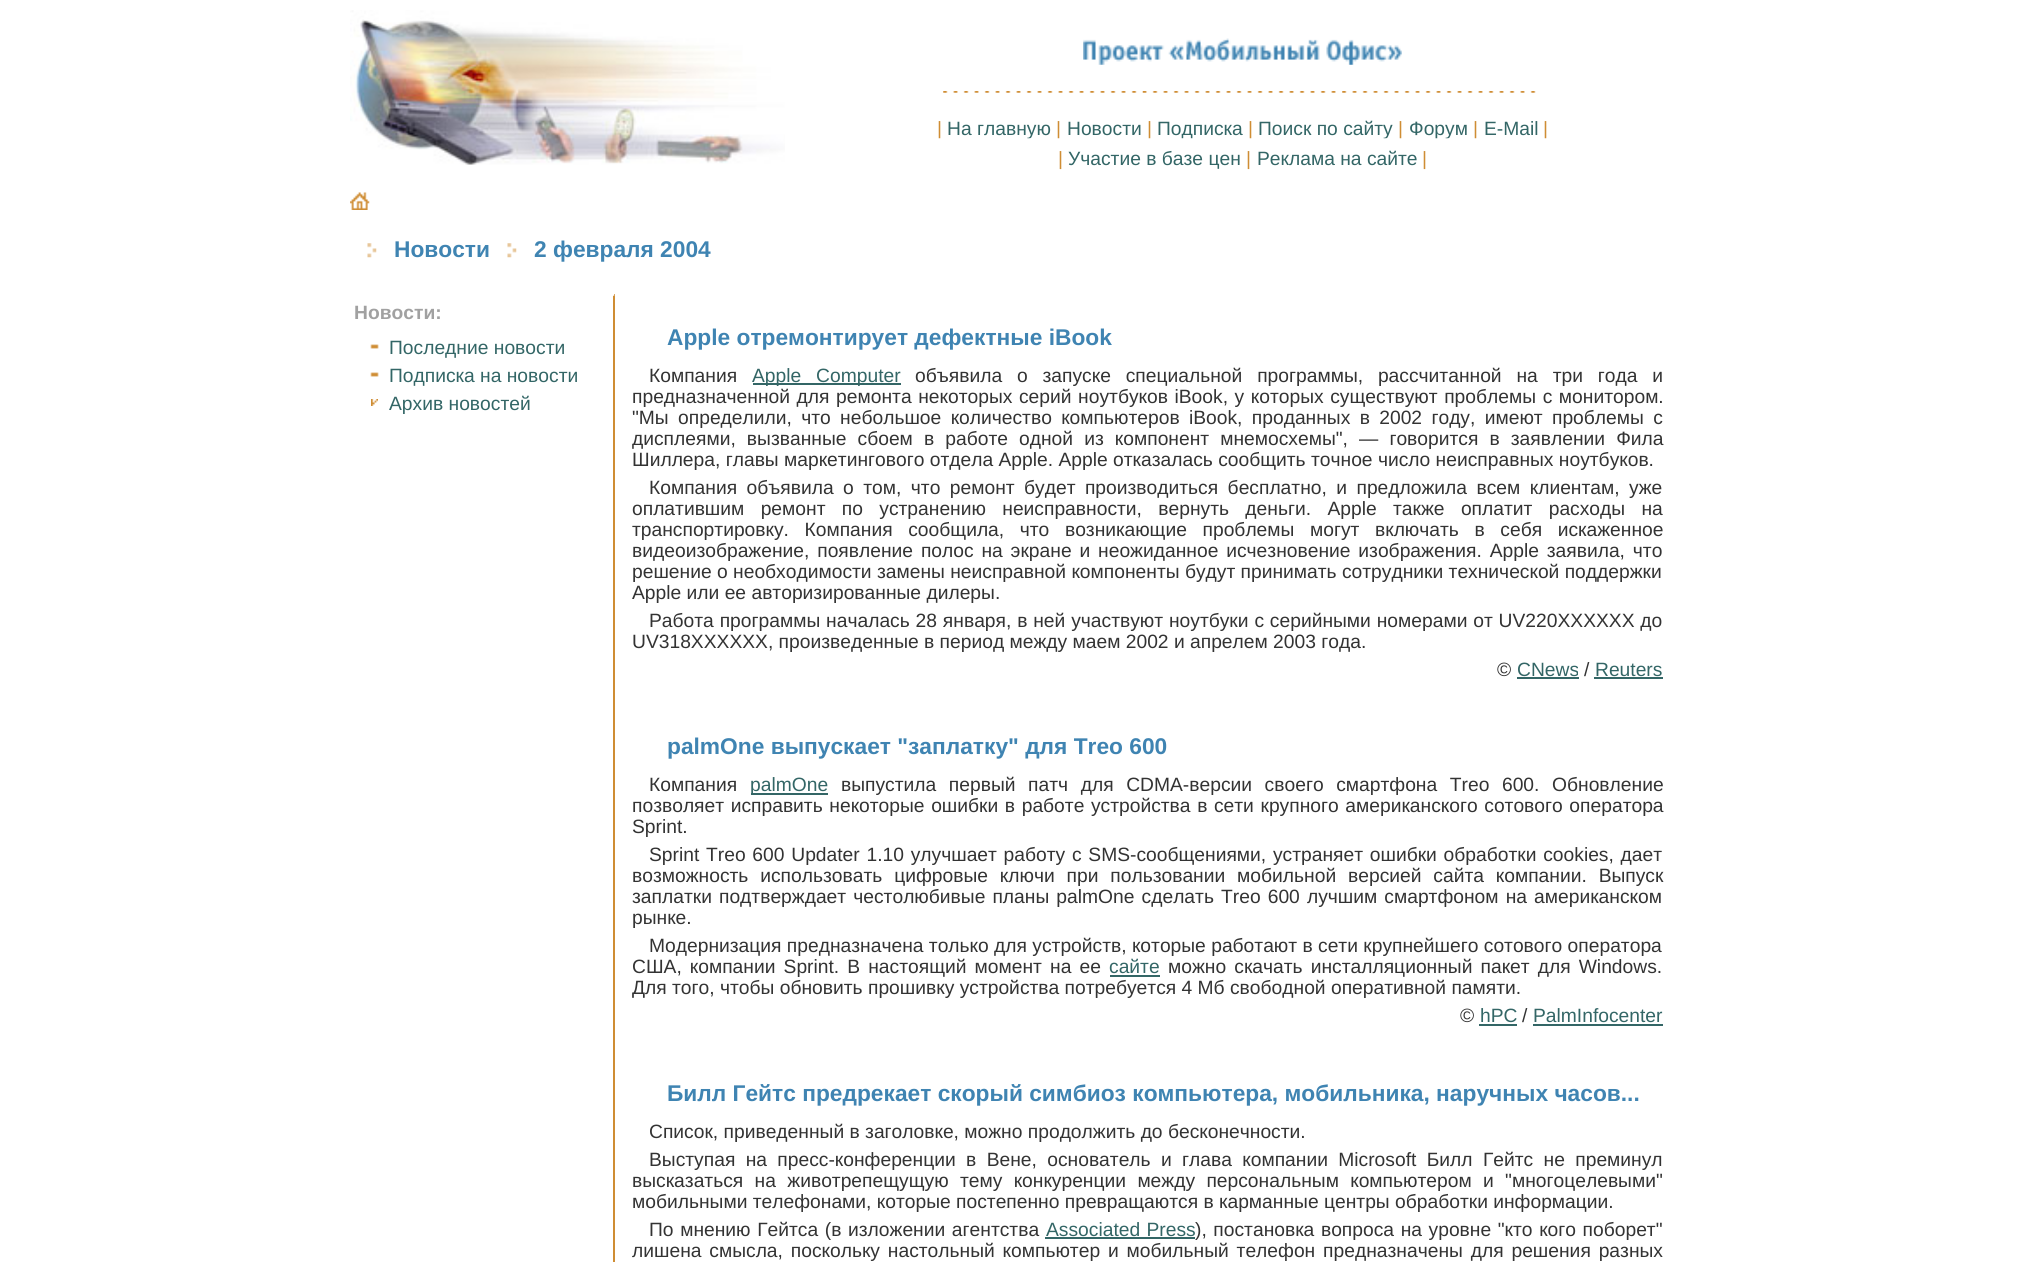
import math
import cairo


def write_spaced(ctx, x, y, s, letter, word):
	ctx.move_to(x, y)
	for ch in s:
		ctx.show_text(ch)
		ctx.rel_move_to(letter + word * (ch == ' '), 0)

def paste(ctx, path, x, y, w, h):
	ctx.save()
	ctx.set_source_surface(cairo.ImageSurface.create_from_png(path), x, y)
	ctx.rectangle(x, y, w, h)
	ctx.fill()
	ctx.restore()

def draw(ctx):
	ctx.set_source_rgb(1, 1, 1)
	ctx.paint()
	paste(ctx, 'media/1.png', 350, 10, 435, 155)
	paste(ctx, 'media/2.png', 1083, 38, 319, 27)
	paste(ctx, 'media/3.png', 943, 91, 194, 2)
	paste(ctx, 'media/4.png', 1142, 91, 194, 2)
	paste(ctx, 'media/3.png', 1342, 91, 194, 2)
	ctx.select_font_face('Liberation Sans')
	ctx.set_font_size(19.25)
	ctx.set_source_rgb(0.812, 0.553, 0.204)
	ctx.move_to(937, 135)
	ctx.show_text('|')
	ctx.set_source_rgb(0.2, 0.4, 0.4)
	ctx.move_to(947, 135)
	ctx.show_text('На главную')
	ctx.set_source_rgb(0.812, 0.553, 0.204)
	ctx.move_to(1056, 135)
	ctx.show_text('|')
	ctx.set_source_rgb(0.2, 0.4, 0.4)
	ctx.move_to(1067, 135)
	ctx.show_text('Новости')
	ctx.set_source_rgb(0.812, 0.553, 0.204)
	ctx.move_to(1147, 135)
	ctx.show_text('|')
	ctx.set_source_rgb(0.2, 0.4, 0.4)
	ctx.move_to(1157, 135)
	ctx.show_text('Подписка')
	ctx.set_source_rgb(0.812, 0.553, 0.204)
	ctx.move_to(1248, 135)
	ctx.show_text('|')
	ctx.set_source_rgb(0.2, 0.4, 0.4)
	ctx.move_to(1258, 135)
	ctx.show_text('Поиск по сайту')
	ctx.set_source_rgb(0.812, 0.553, 0.204)
	ctx.move_to(1398, 135)
	ctx.show_text('|')
	ctx.set_source_rgb(0.2, 0.4, 0.4)
	ctx.move_to(1409, 135)
	ctx.show_text('Форум')
	ctx.set_source_rgb(0.812, 0.553, 0.204)
	ctx.move_to(1473, 135)
	ctx.show_text('|')
	ctx.set_source_rgb(0.2, 0.4, 0.4)
	ctx.move_to(1484, 135)
	ctx.show_text('E-Mail')
	ctx.set_source_rgb(0.812, 0.553, 0.204)
	ctx.move_to(1543, 135)
	ctx.show_text('|')
	paste(ctx, 'media/5.png', 938, 138, 609, 2)
	ctx.move_to(1058, 165)
	ctx.show_text('|')
	ctx.set_source_rgb(0.2, 0.4, 0.4)
	ctx.move_to(1068, 165)
	ctx.show_text('Участие в базе цен')
	ctx.set_source_rgb(0.812, 0.553, 0.204)
	ctx.move_to(1246, 165)
	ctx.show_text('|')
	ctx.set_source_rgb(0.2, 0.4, 0.4)
	ctx.move_to(1257, 165)
	ctx.show_text('Реклама на сайте')
	ctx.set_source_rgb(0.812, 0.553, 0.204)
	ctx.move_to(1422, 165)
	ctx.show_text('|')
	paste(ctx, 'media/6.png', 350, 192, 20, 18)
	paste(ctx, 'media/7.png', 367, 243, 10, 15)
	ctx.select_font_face('Liberation Sans', cairo.FONT_SLANT_NORMAL, cairo.FONT_WEIGHT_BOLD)
	ctx.set_font_size(22.75)
	ctx.set_source_rgb(0.247, 0.518, 0.698)
	ctx.move_to(394, 257)
	ctx.show_text('Новости')
	paste(ctx, 'media/7.png', 507, 243, 10, 15)
	ctx.move_to(534, 257)
	ctx.show_text('2 февраля 2004')
	ctx.set_font_size(19.25)
	ctx.set_source_rgb(0.631, 0.631, 0.631)
	ctx.move_to(354, 319)
	ctx.show_text('Новости:')
	paste(ctx, 'media/8.png', 370, 344, 9, 5)
	ctx.select_font_face('Liberation Sans')
	ctx.set_source_rgb(0.2, 0.4, 0.4)
	ctx.move_to(389, 354)
	ctx.show_text('Последние новости')
	paste(ctx, 'media/8.png', 370, 372, 9, 5)
	ctx.move_to(389, 382)
	ctx.show_text('Подписка на новости')
	paste(ctx, 'media/9.png', 371, 399, 7, 7)
	ctx.move_to(389, 410)
	ctx.show_text('Архив новостей')
	ctx.set_source_rgb(0.812, 0.553, 0.204)
	ctx.rectangle(613, 294, 2, 968)
	ctx.fill()
	paste(ctx, 'media/10.png', 613, 294, 2, 2)
	ctx.select_font_face('Liberation Sans', cairo.FONT_SLANT_NORMAL, cairo.FONT_WEIGHT_BOLD)
	ctx.set_font_size(22.75)
	ctx.set_source_rgb(0.247, 0.518, 0.698)
	ctx.move_to(667, 345)
	ctx.show_text('Apple отремонтирует дефектные iBook')
	ctx.select_font_face('Liberation Sans')
	ctx.set_font_size(19.25)
	ctx.set_source_rgb(0.2, 0.2, 0.2)
	ctx.move_to(649, 382)
	ctx.show_text('Компания')
	ctx.set_source_rgb(0.2, 0.4, 0.4)
	ctx.rectangle(753, 383, 148, 2)
	ctx.fill()
	write_spaced(ctx, 752, 382, 'Apple Computer', 0, 9.5)
	ctx.set_source_rgb(0.2, 0.2, 0.2)
	write_spaced(ctx, 915, 382, 'объявила о запуске специальной программы, рассчитанной на три года и', 0, 9.5)
	write_spaced(ctx, 632, 403, 'предназначенной для ремонта некоторых серий ноутбуков iBook, у которых существуют проблемы с монитором.', 0, 1.25)
	write_spaced(ctx, 632, 424, '"Мы определили, что небольшое количество компьютеров iBook, проданных в 2002 году, имеют проблемы с', 0, 4)
	write_spaced(ctx, 632, 445, 'дисплеями, вызванные сбоем в работе одной из компонент мнемосхемы", — говорится в заявлении Фила', 0, 5.75)
	ctx.move_to(632, 466)
	ctx.show_text('Шиллера, главы маркетингового отдела Apple. Apple отказалась сообщить точное число неисправных ноутбуков.')
	write_spaced(ctx, 649, 494, 'Компания объявила о том, что ремонт будет производиться бесплатно, и предложила всем клиентам, уже', 0, 4.1)
	write_spaced(ctx, 632, 515, 'оплатившим ремонт по устранению неисправности, вернуть деньги. Apple также оплатит расходы на', 0, 11)
	write_spaced(ctx, 632, 536, 'транспортировку. Компания сообщила, что возникающие проблемы могут включать в себя искаженное', 0, 10.25)
	write_spaced(ctx, 632, 557, 'видеоизображение, появление полос на экране и неожиданное исчезновение изображения. Apple заявила, что', 0, 2.5)
	ctx.move_to(632, 578)
	ctx.show_text('решение о необходимости замены неисправной компоненты будут принимать сотрудники технической поддержки')
	ctx.move_to(632, 599)
	ctx.show_text('Apple или ее авторизированные дилеры.')
	write_spaced(ctx, 649, 627, 'Работа программы началась 28 января, в ней участвуют ноутбуки с серийными номерами от UV220XXXXXX до', 0, 0.5)
	ctx.move_to(632, 648)
	ctx.show_text('UV318XXXXXX, произведенные в период между маем 2002 и апрелем 2003 года.')
	ctx.move_to(1497, 676)
	ctx.show_text('©')
	ctx.set_source_rgb(0.2, 0.4, 0.4)
	ctx.move_to(1517, 676)
	ctx.show_text('CNews')
	ctx.rectangle(1517, 677, 62, 2)
	ctx.fill()
	ctx.set_source_rgb(0.2, 0.2, 0.2)
	ctx.move_to(1584, 676)
	ctx.show_text('/')
	ctx.set_source_rgb(0.2, 0.4, 0.4)
	ctx.move_to(1595, 676)
	ctx.show_text('Reuters')
	ctx.rectangle(1594, 677, 69, 2)
	ctx.fill()
	ctx.select_font_face('Liberation Sans', cairo.FONT_SLANT_NORMAL, cairo.FONT_WEIGHT_BOLD)
	ctx.set_font_size(22.75)
	ctx.set_source_rgb(0.247, 0.518, 0.698)
	ctx.move_to(667, 754)
	ctx.show_text('palmOne выпускает "заплатку" для Treo 600')
	ctx.select_font_face('Liberation Sans')
	ctx.set_font_size(19.25)
	ctx.set_source_rgb(0.2, 0.2, 0.2)
	ctx.move_to(649, 791)
	ctx.show_text('Компания')
	ctx.set_source_rgb(0.2, 0.4, 0.4)
	ctx.rectangle(751, 793, 77, 2)
	ctx.fill()
	ctx.move_to(750, 791)
	ctx.show_text('palmOne')
	ctx.set_source_rgb(0.2, 0.2, 0.2)
	write_spaced(ctx, 841, 791, 'выпустила первый патч для CDMA-версии своего смартфона Treo 600. Обновление', 0, 7.25)
	write_spaced(ctx, 632, 812, 'позволяет исправить некоторые ошибки в работе устройства в сети крупного американского сотового оператора', 0, 1.25)
	ctx.move_to(632, 833)
	ctx.show_text('Sprint.')
	write_spaced(ctx, 649, 861, 'Sprint Treo 600 Updater 1.10 улучшает работу с SMS-сообщениями, устраняет ошибки обработки cookies, дает', 0, 1.4)
	write_spaced(ctx, 632, 882, 'возможность использовать цифровые ключи при пользовании мобильной версией сайта компании. Выпуск', 0, 6.5)
	write_spaced(ctx, 632, 903, 'заплатки подтверждает честолюбивые планы palmOne сделать Treo 600 лучшим смартфоном на американском', 0, 1.75)
	ctx.move_to(632, 924)
	ctx.show_text('рынке.')
	ctx.move_to(649, 952)
	ctx.show_text('Модернизация предназначена только для устройств, которые работают в сети крупнейшего сотового оператора')
	write_spaced(ctx, 632, 973, 'США, компании Sprint. В настоящий момент на ее', 0, 2.75)
	ctx.set_source_rgb(0.2, 0.4, 0.4)
	ctx.move_to(1109, 973)
	ctx.show_text('сайте')
	ctx.rectangle(1110, 975, 50, 2)
	ctx.fill()
	ctx.set_source_rgb(0.2, 0.2, 0.2)
	write_spaced(ctx, 1168, 973, 'можно скачать инсталляционный пакет для Windows.', 0, 2.75)
	ctx.move_to(632, 994)
	ctx.show_text('Для того, чтобы обновить прошивку устройства потребуется 4 Мб свободной оперативной памяти.')
	ctx.move_to(1460, 1022)
	ctx.show_text('©')
	ctx.set_source_rgb(0.2, 0.4, 0.4)
	ctx.move_to(1480, 1022)
	ctx.show_text('hPC')
	ctx.rectangle(1479, 1024, 38, 2)
	ctx.fill()
	ctx.set_source_rgb(0.2, 0.2, 0.2)
	ctx.move_to(1522, 1022)
	ctx.show_text('/')
	ctx.set_source_rgb(0.2, 0.4, 0.4)
	ctx.move_to(1533, 1022)
	ctx.show_text('PalmInfocenter')
	ctx.rectangle(1533, 1024, 130, 2)
	ctx.fill()
	ctx.select_font_face('Liberation Sans', cairo.FONT_SLANT_NORMAL, cairo.FONT_WEIGHT_BOLD)
	ctx.set_font_size(22.75)
	ctx.set_source_rgb(0.247, 0.518, 0.698)
	ctx.move_to(667, 1101)
	ctx.show_text('Билл Гейтс предрекает скорый симбиоз компьютера, мобильника, наручных часов...')
	ctx.select_font_face('Liberation Sans')
	ctx.set_font_size(19.25)
	ctx.set_source_rgb(0.2, 0.2, 0.2)
	ctx.move_to(649, 1138)
	ctx.show_text('Список, приведенный в заголовке, можно продолжить до бесконечности.')
	write_spaced(ctx, 649, 1166, 'Выступая на пресс-конференции в Вене, основатель и глава компании Microsoft Билл Гейтс не преминул', 0, 5)
	write_spaced(ctx, 632, 1187, 'высказаться на животрепещущую тему конкуренции между персональным компьютером и "многоцелевыми"', 0, 6)
	ctx.move_to(632, 1208)
	ctx.show_text('мобильными телефонами, которые постепенно превращаются в карманные центры обработки информации.')
	write_spaced(ctx, 649, 1236, 'По мнению Гейтса (в изложении агентства', 0, 1.25)
	ctx.set_source_rgb(0.2, 0.4, 0.4)
	write_spaced(ctx, 1046, 1236, 'Associated Press', 0, 1)
	ctx.rectangle(1045, 1237, 150, 2)
	ctx.fill()
	ctx.set_source_rgb(0.2, 0.2, 0.2)
	write_spaced(ctx, 1195, 1236, '), постановка вопроса на уровне "кто кого поборет"', 0, 1.25)
	write_spaced(ctx, 632, 1257, 'лишена смысла, поскольку настольный компьютер и мобильный телефон предназначены для решения разных', 0, 2.5)


surface = cairo.ImageSurface(cairo.FORMAT_RGB24, 2029, 1262)
ctx = cairo.Context(surface)
options = cairo.FontOptions()
options.set_hint_metrics(cairo.HINT_METRICS_OFF)
options.set_hint_style(cairo.HINT_STYLE_NONE)
ctx.set_font_options(options)
ctx.set_miter_limit(4)
draw(ctx)
surface.write_to_png('image.png')
